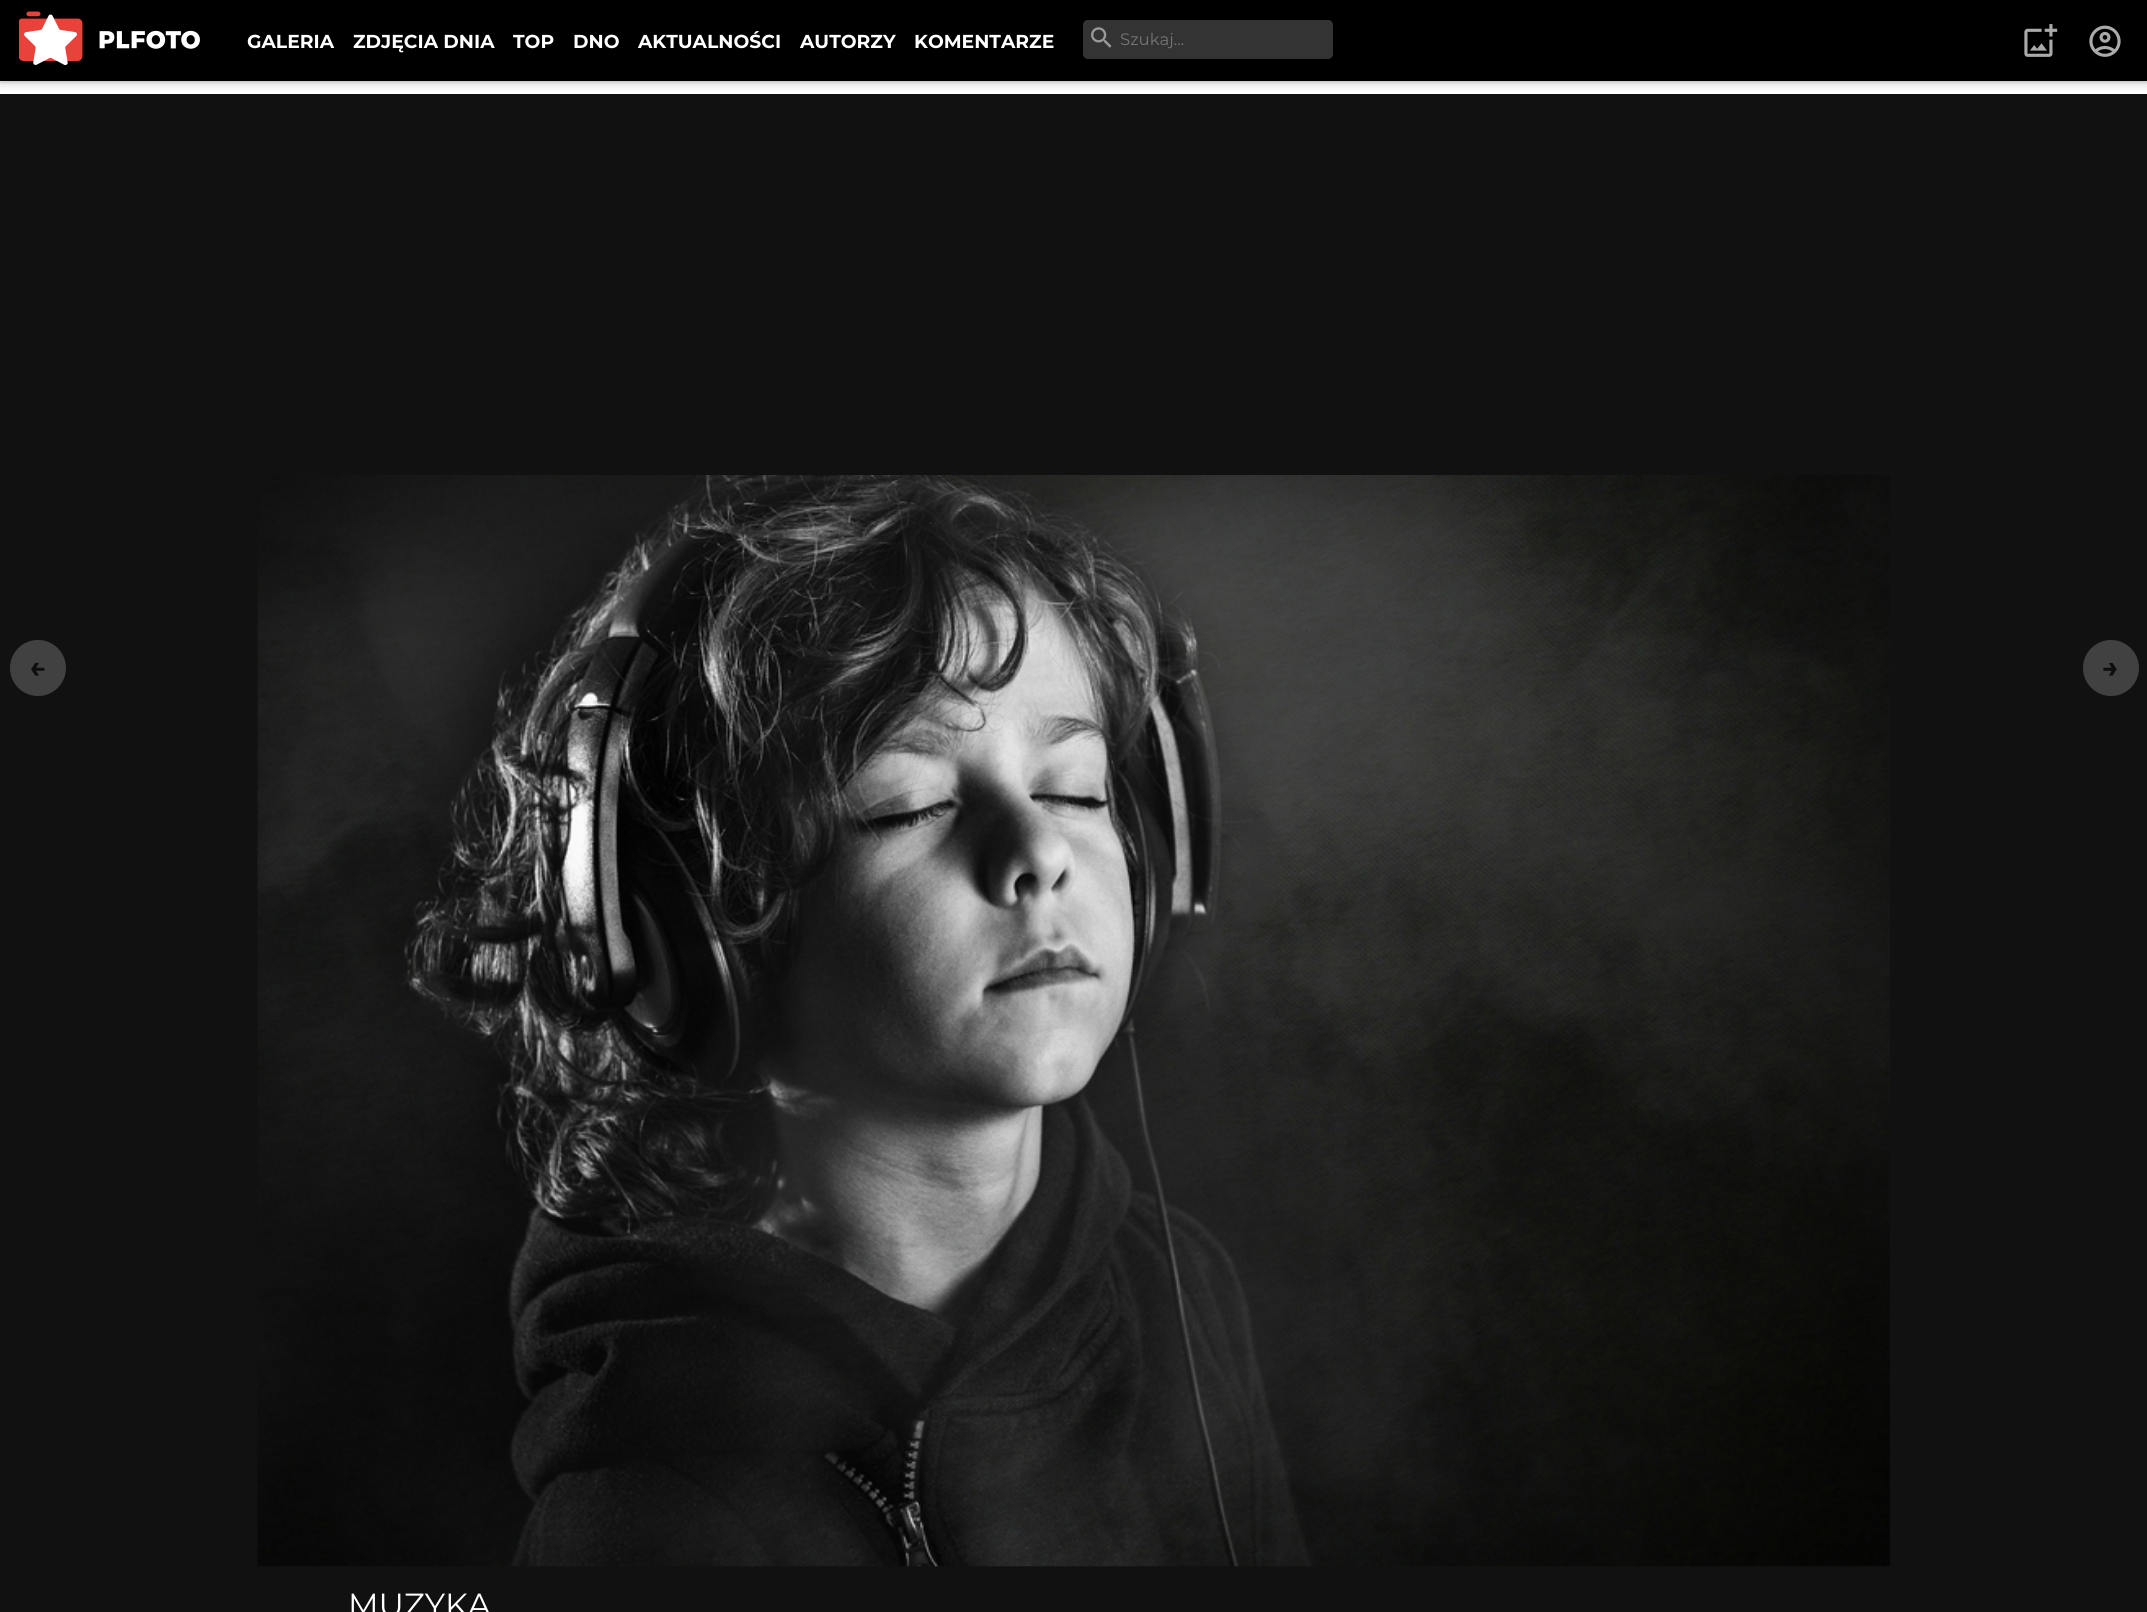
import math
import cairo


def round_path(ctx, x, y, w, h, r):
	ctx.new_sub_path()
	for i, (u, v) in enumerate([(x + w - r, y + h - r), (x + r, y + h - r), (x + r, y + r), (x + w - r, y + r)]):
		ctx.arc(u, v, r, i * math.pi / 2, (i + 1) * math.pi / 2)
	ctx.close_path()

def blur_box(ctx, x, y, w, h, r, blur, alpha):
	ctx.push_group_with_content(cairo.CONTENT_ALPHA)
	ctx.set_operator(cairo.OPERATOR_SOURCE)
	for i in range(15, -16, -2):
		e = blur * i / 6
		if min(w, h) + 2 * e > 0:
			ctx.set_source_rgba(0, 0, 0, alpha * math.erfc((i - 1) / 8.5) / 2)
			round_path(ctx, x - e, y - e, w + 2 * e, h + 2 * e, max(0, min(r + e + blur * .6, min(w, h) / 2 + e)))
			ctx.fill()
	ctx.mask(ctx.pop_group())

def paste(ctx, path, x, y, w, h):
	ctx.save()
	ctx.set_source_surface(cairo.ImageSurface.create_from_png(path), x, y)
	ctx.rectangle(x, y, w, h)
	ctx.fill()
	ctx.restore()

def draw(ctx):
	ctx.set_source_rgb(1, 1, 1)
	ctx.paint()
	ctx.set_source_rgb(0, 0, 0)
	blur_box(ctx, 0, 1, 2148, 82, 0, 1, 0.11)
	ctx.set_source_rgb(0.067, 0.067, 0.067)
	ctx.rectangle(0, 94, 2147, 1518)
	ctx.fill()
	ctx.set_source_rgb(0, 0, 0)
	blur_box(ctx, 0, 4, 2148, 81, 0, 4.5, 0.13)
	ctx.set_source_rgb(0, 0, 0)
	ctx.rectangle(0, 0, 2147, 81)
	ctx.fill()
	paste(ctx, 'media/1.png', 19, 11, 181, 54)
	ctx.select_font_face('Montserrat', cairo.FONT_SLANT_NORMAL, cairo.FONT_WEIGHT_BOLD)
	ctx.set_font_size(18.75)
	ctx.set_source_rgb(1, 1, 1)
	for x, y, s in [
		(247, 48, 'GALERIA'),
		(353, 48, 'ZDJĘCIA DNIA'),
		(513, 48, 'TOP'),
		(573, 48, 'DNO'),
		(638, 48, 'AKTUALNOŚCI'),
		(800, 48, 'AUTORZY'),
		(914, 48, 'KOMENTARZE'),
	]:
		ctx.move_to(x, y)
		ctx.show_text(s)
	ctx.set_source_rgb(0.2, 0.2, 0.2)
	round_path(ctx, 1083, 20, 250, 39, 5)
	ctx.fill()
	paste(ctx, 'media/2.png', 1091, 27, 21, 21)
	ctx.select_font_face('Montserrat')
	ctx.set_font_size(16.5)
	ctx.set_source_rgb(0.459, 0.459, 0.459)
	ctx.move_to(1120, 45)
	ctx.show_text('Szukaj...')
	paste(ctx, 'media/3.png', 2024, 24, 34, 33)
	paste(ctx, 'media/4.png', 2089, 25, 32, 32)
	ctx.set_source_rgb(0.255, 0.255, 0.255)
	ctx.arc(38, 668, 28, 0, 2 * math.pi)
	ctx.fill()
	ctx.select_font_face('Montserrat', cairo.FONT_SLANT_NORMAL, cairo.FONT_WEIGHT_BOLD)
	ctx.set_font_size(28)
	ctx.set_source_rgb(0.055, 0.055, 0.055)
	ctx.move_to(29, 677)
	ctx.show_text('←')
	paste(ctx, 'media/5.png', 257, 475, 1633, 1092)
	ctx.set_source_rgb(0.255, 0.255, 0.255)
	ctx.arc(2111, 668, 28, 0, 2 * math.pi)
	ctx.fill()
	ctx.set_source_rgb(0.055, 0.055, 0.055)
	ctx.move_to(2102, 677)
	ctx.show_text('→')
	ctx.select_font_face('Montserrat')
	ctx.set_font_size(32)
	ctx.set_source_rgb(1, 1, 1)
	ctx.move_to(348, 1616)
	ctx.show_text('MUZYKA')


surface = cairo.ImageSurface(cairo.FORMAT_RGB24, 2147, 1612)
ctx = cairo.Context(surface)
options = cairo.FontOptions()
options.set_hint_metrics(cairo.HINT_METRICS_OFF)
options.set_hint_style(cairo.HINT_STYLE_NONE)
ctx.set_font_options(options)
ctx.set_miter_limit(4)
draw(ctx)
surface.write_to_png('image.png')
